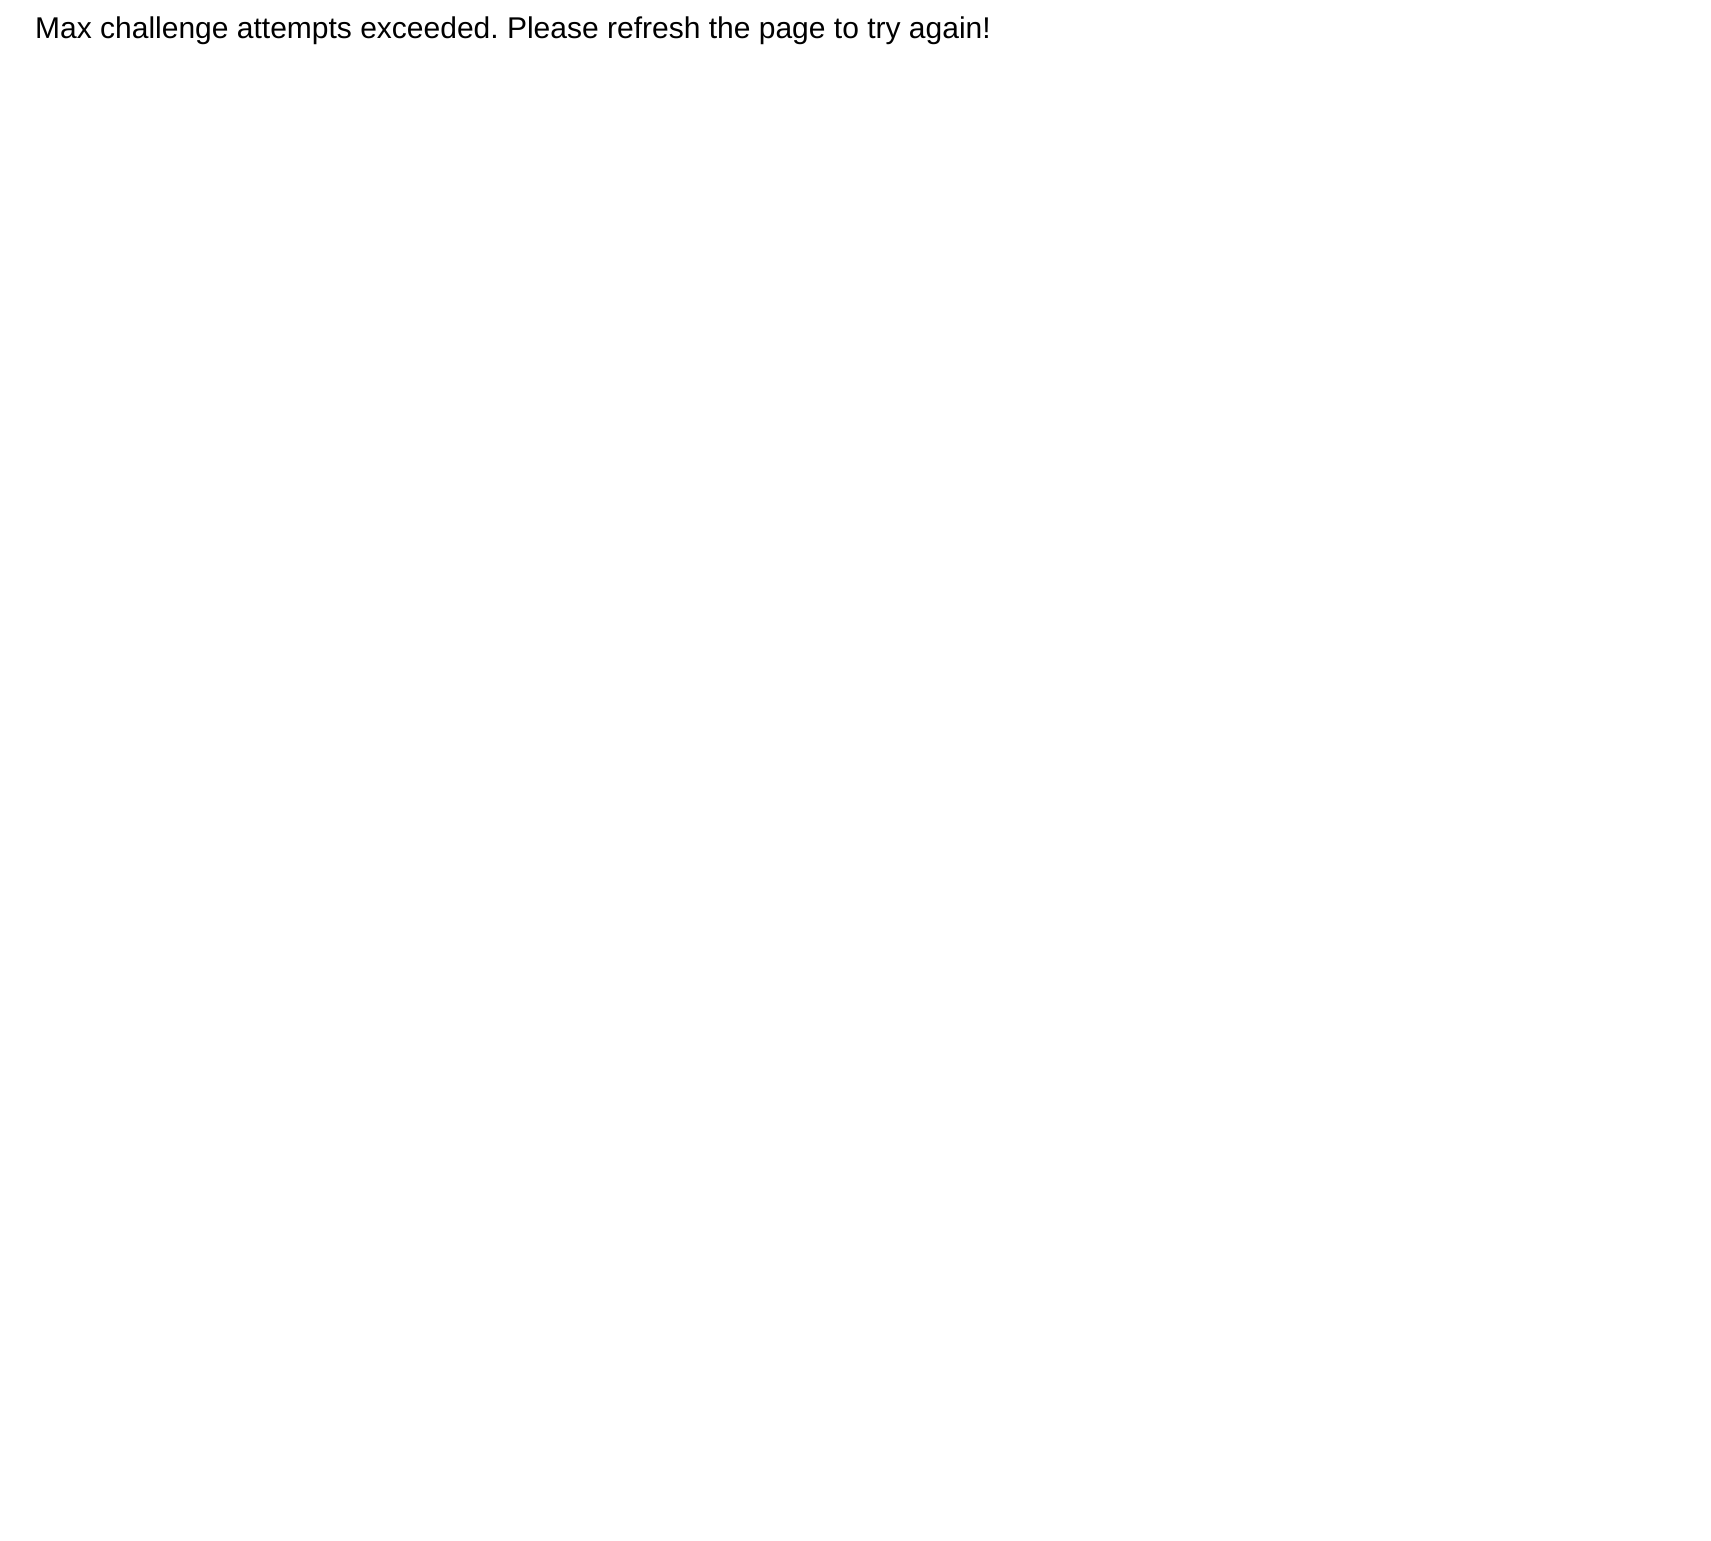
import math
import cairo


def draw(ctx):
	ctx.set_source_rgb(1, 1, 1)
	ctx.paint()
	ctx.select_font_face('Liberation Sans')
	ctx.set_font_size(30)
	ctx.set_source_rgb(0, 0, 0)
	ctx.move_to(35, 38)
	ctx.show_text('Max challenge attempts exceeded. Please refresh the page to try again!')


surface = cairo.ImageSurface(cairo.FORMAT_RGB24, 1711, 1541)
ctx = cairo.Context(surface)
options = cairo.FontOptions()
options.set_hint_metrics(cairo.HINT_METRICS_OFF)
options.set_hint_style(cairo.HINT_STYLE_NONE)
ctx.set_font_options(options)
ctx.set_miter_limit(4)
draw(ctx)
surface.write_to_png('image.png')
